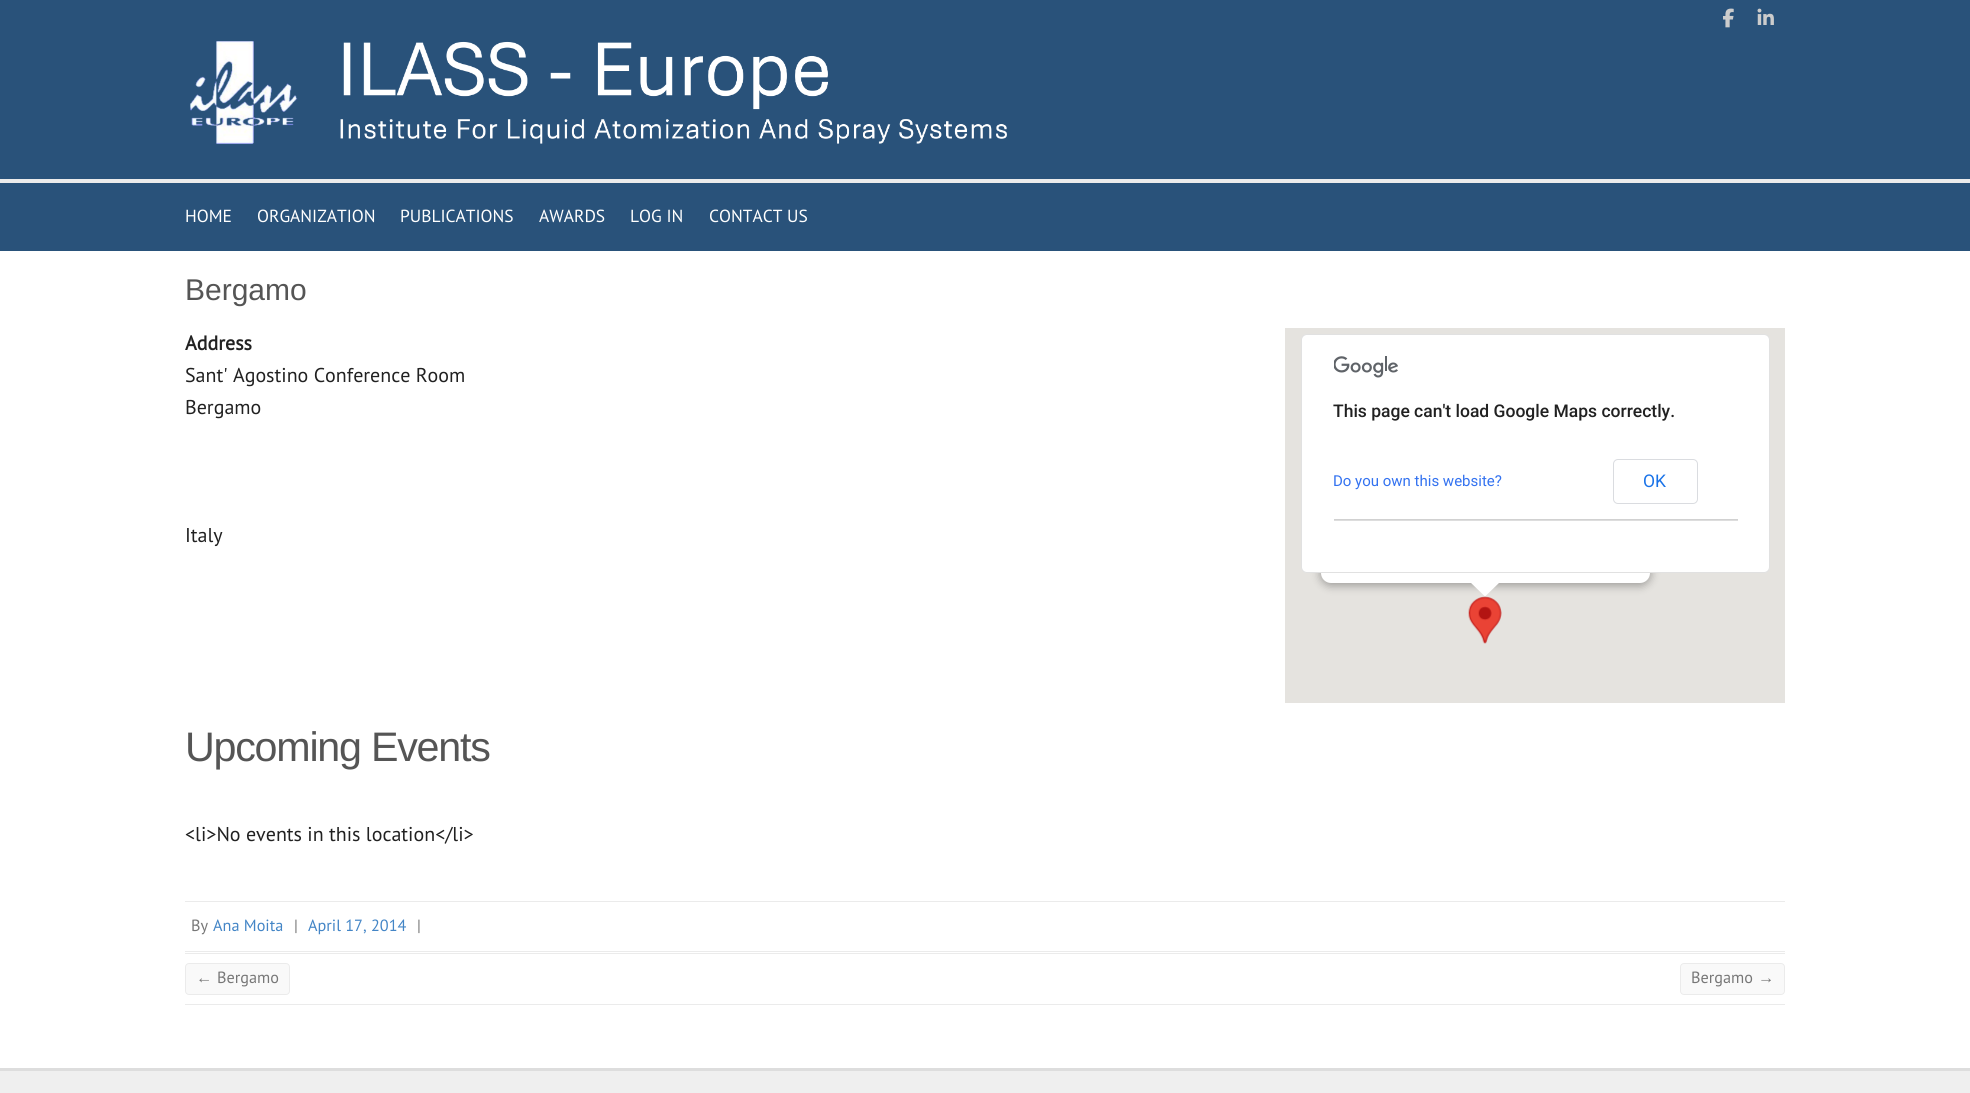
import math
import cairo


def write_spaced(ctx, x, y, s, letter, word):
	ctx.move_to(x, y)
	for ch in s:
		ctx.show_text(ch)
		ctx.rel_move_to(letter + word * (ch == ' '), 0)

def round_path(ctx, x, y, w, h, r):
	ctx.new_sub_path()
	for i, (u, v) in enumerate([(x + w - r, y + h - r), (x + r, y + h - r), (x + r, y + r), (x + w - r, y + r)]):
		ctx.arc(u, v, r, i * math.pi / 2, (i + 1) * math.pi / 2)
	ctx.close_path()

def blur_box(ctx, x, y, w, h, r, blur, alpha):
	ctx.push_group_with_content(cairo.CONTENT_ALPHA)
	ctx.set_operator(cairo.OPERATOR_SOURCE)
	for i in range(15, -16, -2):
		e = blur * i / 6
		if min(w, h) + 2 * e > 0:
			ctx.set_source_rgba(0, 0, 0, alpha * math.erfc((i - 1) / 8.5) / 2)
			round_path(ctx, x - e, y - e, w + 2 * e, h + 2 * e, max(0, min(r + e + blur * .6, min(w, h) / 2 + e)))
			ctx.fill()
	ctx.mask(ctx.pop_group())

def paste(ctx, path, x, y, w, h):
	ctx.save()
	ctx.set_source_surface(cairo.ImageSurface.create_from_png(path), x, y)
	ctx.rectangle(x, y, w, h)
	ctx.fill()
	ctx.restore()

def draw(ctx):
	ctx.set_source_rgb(1, 1, 1)
	ctx.paint()
	ctx.set_source_rgb(0.161, 0.322, 0.478)
	ctx.rectangle(0, 0, 1970, 251)
	ctx.fill()
	paste(ctx, 'media/1.png', 1723, 8, 11, 20)
	paste(ctx, 'media/2.png', 1757, 8, 17, 17)
	paste(ctx, 'media/3.png', 190, 41, 817, 103)
	ctx.set_source_rgb(0.918, 0.918, 0.918)
	ctx.rectangle(0, 179, 1970, 4)
	ctx.fill()
	ctx.select_font_face('PT Sans')
	ctx.set_font_size(17.5)
	ctx.set_source_rgb(1, 1, 1)
	for x, y, s in [
		(185, 222, 'HOME'),
		(257, 222, 'ORGANIZATION'),
		(400, 222, 'PUBLICATIONS'),
		(539, 222, 'AWARDS'),
		(630, 222, 'LOG IN'),
		(709, 222, 'CONTACT US'),
	]:
		ctx.move_to(x, y)
		ctx.show_text(s)
	ctx.select_font_face('Liberation Sans')
	ctx.set_font_size(30)
	ctx.set_source_rgb(0.333, 0.333, 0.333)
	ctx.move_to(185, 300)
	ctx.show_text('Bergamo')
	ctx.select_font_face('PT Sans', cairo.FONT_SLANT_NORMAL, cairo.FONT_WEIGHT_BOLD)
	ctx.set_font_size(20)
	ctx.set_source_rgb(0.129, 0.129, 0.129)
	ctx.move_to(185, 350)
	ctx.show_text('Address')
	ctx.select_font_face('PT Sans')
	for x, y, s in [
		(185, 382, 'Sant\' Agostino Conference Room'),
		(185, 414, 'Bergamo'),
		(185, 542, 'Italy'),
	]:
		ctx.move_to(x, y)
		ctx.show_text(s)
	ctx.set_source_rgb(0.898, 0.89, 0.875)
	ctx.rectangle(1285, 328, 500, 375)
	ctx.fill()
	paste(ctx, 'media/4.png', 1468, 596, 34, 48)
	ctx.set_source_rgb(0, 0, 0)
	blur_box(ctx, 1320, 444, 331, 142, 11, 4.5, 0.3)
	ctx.set_source_rgb(1, 1, 1)
	round_path(ctx, 1321, 443, 329, 140, 10)
	ctx.fill()
	ctx.new_path()
	ctx.move_to(1470, 582)
	ctx.line_to(1470, 581.5)
	ctx.line_to(1500.5, 581.5)
	ctx.line_to(1485.5, 596)
	ctx.line_to(1484.5, 596)
	ctx.close_path()
	ctx.fill()
	round_path(ctx, 1301, 334, 469, 239, 6)
	ctx.fill()
	round_path(ctx, 1301.5, 334.5, 468, 238, 5.5)
	ctx.set_source_rgba(0, 0, 0, 0.12)
	ctx.set_line_width(1)
	ctx.stroke()
	paste(ctx, 'media/5.png', 1334, 356, 64, 22)
	ctx.select_font_face('Roboto Medium')
	ctx.set_font_size(17.5)
	ctx.set_source_rgb(0.129, 0.129, 0.129)
	ctx.move_to(1333, 417)
	ctx.show_text('This page can\'t load Google Maps correctly.')
	ctx.set_source_rgb(0.867, 0.867, 0.867)
	ctx.rectangle(1334, 520, 404, 1)
	ctx.fill()
	ctx.set_source_rgb(0.82, 0.82, 0.82)
	ctx.rectangle(1334, 519, 404, 1)
	ctx.fill()
	ctx.select_font_face('Roboto')
	ctx.set_font_size(15)
	ctx.set_source_rgb(0.2, 0.447, 0.941)
	ctx.move_to(1333, 486)
	ctx.show_text('Do you own this website?')
	round_path(ctx, 1613.5, 459.5, 84, 44, 4.5)
	ctx.set_source_rgb(0.855, 0.863, 0.878)
	ctx.stroke()
	ctx.set_font_size(17.5)
	ctx.set_source_rgb(0.102, 0.451, 0.91)
	ctx.move_to(1643, 487)
	ctx.show_text('OK')
	ctx.select_font_face('Liberation Sans')
	ctx.set_font_size(41.25)
	ctx.set_source_rgb(0.333, 0.333, 0.333)
	write_spaced(ctx, 185, 761, 'Upcoming Events', -1.25, 0)
	ctx.select_font_face('PT Sans')
	ctx.set_font_size(20)
	ctx.set_source_rgb(0.129, 0.129, 0.129)
	ctx.move_to(185, 841)
	ctx.show_text('<li>No events in this location</li>')
	ctx.set_source_rgb(0.918, 0.918, 0.918)
	ctx.rectangle(185, 901, 1600, 1)
	ctx.fill()
	ctx.rectangle(185, 951, 1600, 1)
	ctx.fill()
	ctx.set_font_size(16.25)
	ctx.set_source_rgb(0.467, 0.467, 0.467)
	ctx.move_to(191, 931)
	ctx.show_text('By')
	ctx.set_source_rgb(0.263, 0.522, 0.776)
	ctx.move_to(213, 931)
	ctx.show_text('Ana Moita')
	ctx.set_source_rgb(0.467, 0.467, 0.467)
	ctx.move_to(294, 931)
	ctx.show_text('|')
	ctx.set_source_rgb(0.263, 0.522, 0.776)
	ctx.move_to(308, 931)
	ctx.show_text('April 17, 2014')
	ctx.set_source_rgb(0.467, 0.467, 0.467)
	ctx.move_to(417, 931)
	ctx.show_text('|')
	ctx.set_source_rgb(0.918, 0.918, 0.918)
	ctx.rectangle(185, 953, 1600, 1)
	ctx.fill()
	ctx.rectangle(185, 1004, 1600, 1)
	ctx.fill()
	ctx.set_source_rgb(0.976, 0.976, 0.976)
	round_path(ctx, 185.5, 963.5, 104, 31, 3.5)
	ctx.fill_preserve()
	ctx.set_source_rgb(0.918, 0.918, 0.918)
	ctx.stroke()
	ctx.select_font_face('Liberation Sans')
	ctx.set_source_rgb(0.467, 0.467, 0.467)
	ctx.move_to(196, 983)
	ctx.show_text('←')
	ctx.select_font_face('PT Sans')
	ctx.move_to(217, 983)
	ctx.show_text('Bergamo')
	ctx.set_source_rgb(0.976, 0.976, 0.976)
	round_path(ctx, 1680.5, 963.5, 104, 31, 3.5)
	ctx.fill_preserve()
	ctx.set_source_rgb(0.918, 0.918, 0.918)
	ctx.stroke()
	ctx.set_source_rgb(0.467, 0.467, 0.467)
	ctx.move_to(1691, 983)
	ctx.show_text('Bergamo')
	ctx.select_font_face('Liberation Sans')
	ctx.move_to(1758, 983)
	ctx.show_text('→')
	ctx.set_source_rgb(0.937, 0.937, 0.937)
	ctx.rectangle(0, 1071, 1970, 22)
	ctx.fill()
	ctx.set_source_rgb(0.867, 0.867, 0.867)
	ctx.rectangle(0, 1068, 1970, 3)
	ctx.fill()


surface = cairo.ImageSurface(cairo.FORMAT_RGB24, 1970, 1093)
ctx = cairo.Context(surface)
options = cairo.FontOptions()
options.set_hint_metrics(cairo.HINT_METRICS_OFF)
options.set_hint_style(cairo.HINT_STYLE_NONE)
ctx.set_font_options(options)
ctx.set_miter_limit(4)
draw(ctx)
surface.write_to_png('image.png')
